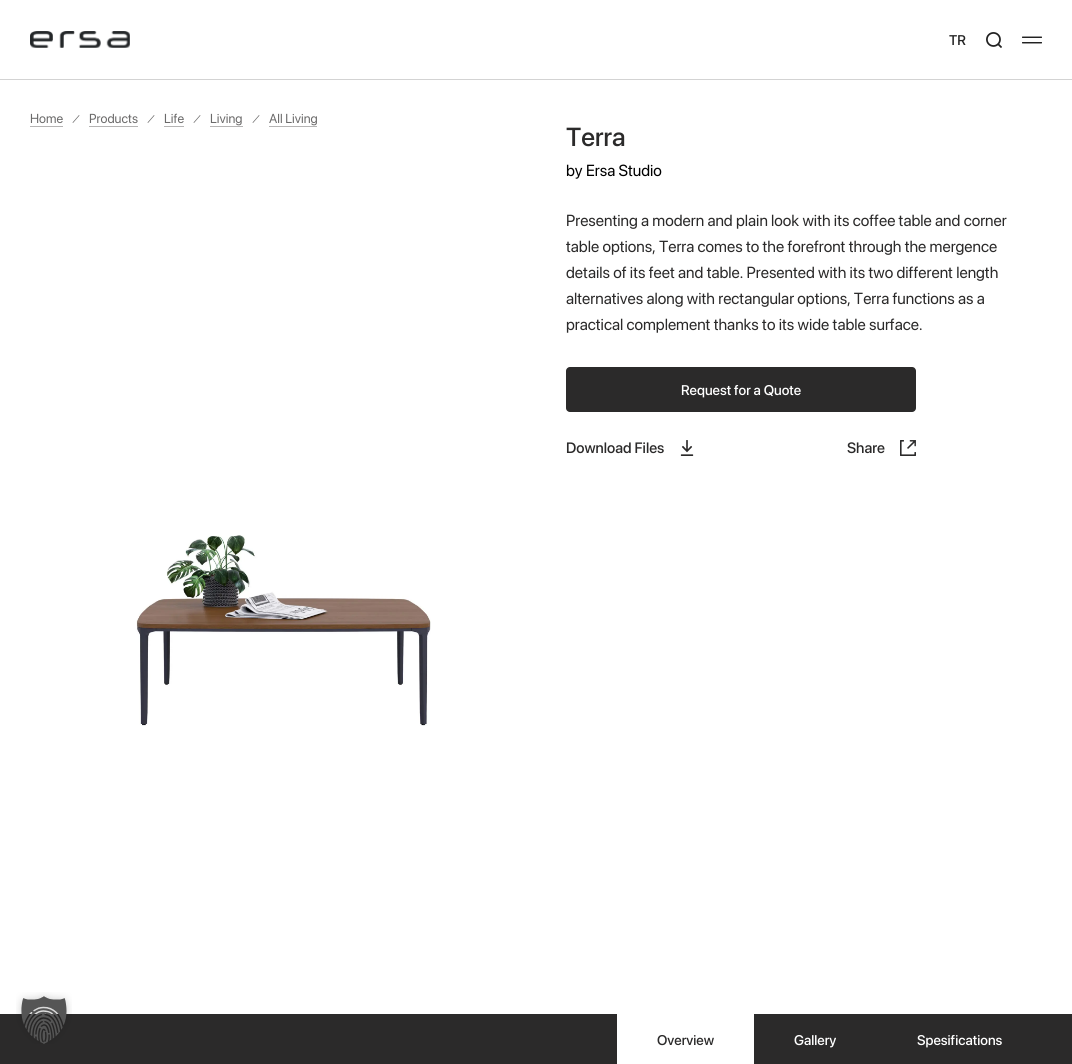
import math
import cairo


def round_path(ctx, x, y, w, h, r):
	ctx.new_sub_path()
	for i, (u, v) in enumerate([(x + w - r, y + h - r), (x + r, y + h - r), (x + r, y + r), (x + w - r, y + r)]):
		ctx.arc(u, v, r, i * math.pi / 2, (i + 1) * math.pi / 2)
	ctx.close_path()

def paste(ctx, path, x, y, w, h):
	ctx.save()
	ctx.set_source_surface(cairo.ImageSurface.create_from_png(path), x, y)
	ctx.rectangle(x, y, w, h)
	ctx.fill()
	ctx.restore()

def draw(ctx):
	ctx.set_source_rgb(1, 1, 1)
	ctx.paint()
	ctx.set_source_rgb(0.827, 0.827, 0.827)
	ctx.rectangle(0, 79, 1072, 1)
	ctx.fill()
	paste(ctx, 'media/1.png', 30, 31, 100, 17)
	ctx.select_font_face('SF Pro Display Medium')
	ctx.set_font_size(14)
	ctx.set_source_rgb(0.133, 0.133, 0.133)
	ctx.move_to(949, 45)
	ctx.show_text('TR')
	paste(ctx, 'media/2.png', 986, 32, 16, 16)
	paste(ctx, 'media/3.png', 1022, 36, 20, 8)
	ctx.set_source_rgb(0.71, 0.706, 0.706)
	ctx.rectangle(30, 126, 33, 1)
	ctx.fill()
	ctx.select_font_face('SF Pro Display')
	ctx.set_font_size(13)
	ctx.set_source_rgb(0.42, 0.416, 0.416)
	ctx.move_to(30, 123)
	ctx.show_text('Home')
	ctx.new_path()
	ctx.move_to(73, 123)
	ctx.line_to(72.5, 122.5)
	ctx.line_to(79, 115)
	ctx.line_to(79.5, 115.5)
	ctx.close_path()
	ctx.fill()
	ctx.set_source_rgb(0.71, 0.706, 0.706)
	ctx.rectangle(89, 126, 49, 1)
	ctx.fill()
	ctx.set_source_rgb(0.42, 0.416, 0.416)
	ctx.move_to(89, 123)
	ctx.show_text('Products')
	ctx.new_path()
	ctx.move_to(148, 123)
	ctx.line_to(147.5, 122.5)
	ctx.line_to(154, 115)
	ctx.line_to(154.5, 115.5)
	ctx.close_path()
	ctx.fill()
	ctx.set_source_rgb(0.71, 0.706, 0.706)
	ctx.rectangle(164, 126, 20, 1)
	ctx.fill()
	ctx.set_source_rgb(0.42, 0.416, 0.416)
	ctx.move_to(164, 123)
	ctx.show_text('Life')
	ctx.new_path()
	ctx.move_to(194, 123)
	ctx.line_to(193.5, 122.5)
	ctx.line_to(200, 115)
	ctx.line_to(200.5, 115.5)
	ctx.close_path()
	ctx.fill()
	ctx.set_source_rgb(0.71, 0.706, 0.706)
	ctx.rectangle(210, 126, 33, 1)
	ctx.fill()
	ctx.set_source_rgb(0.42, 0.416, 0.416)
	ctx.move_to(210, 123)
	ctx.show_text('Living')
	ctx.new_path()
	ctx.move_to(253, 123)
	ctx.line_to(252.5, 122.5)
	ctx.line_to(259, 115)
	ctx.line_to(259.5, 115.5)
	ctx.close_path()
	ctx.fill()
	ctx.set_source_rgb(0.71, 0.706, 0.706)
	ctx.rectangle(269, 126, 48, 1)
	ctx.fill()
	ctx.set_source_rgb(0.42, 0.416, 0.416)
	ctx.move_to(269, 123)
	ctx.show_text('All Living')
	paste(ctx, 'media/4.png', 136, 535, 295, 191)
	ctx.select_font_face('SF Pro Display Medium')
	ctx.set_font_size(26)
	ctx.set_source_rgb(0.169, 0.165, 0.165)
	ctx.move_to(566, 146)
	ctx.show_text('Terra')
	ctx.select_font_face('SF Pro Display')
	ctx.set_font_size(16)
	ctx.set_source_rgb(0, 0, 0)
	ctx.move_to(566, 176)
	ctx.show_text('by Ersa Studio')
	ctx.set_source_rgb(0.169, 0.165, 0.165)
	for x, y, s in [
		(566, 226, 'Presenting a modern and plain look with its coffee table and corner'),
		(566, 252, 'table options, Terra comes to the forefront through the mergence'),
		(566, 278, 'details of its feet and table. Presented with its two different length'),
		(566, 304, 'alternatives along with rectangular options, Terra functions as a'),
		(566, 330, 'practical complement thanks to its wide table surface.'),
	]:
		ctx.move_to(x, y)
		ctx.show_text(s)
	round_path(ctx, 566, 367, 350, 45, 4)
	ctx.fill()
	ctx.select_font_face('SF Pro Display Medium')
	ctx.set_font_size(14)
	ctx.set_source_rgb(1, 1, 1)
	ctx.move_to(681, 395)
	ctx.show_text('Request for a Quote')
	ctx.set_font_size(15)
	ctx.set_source_rgb(0.169, 0.165, 0.165)
	ctx.move_to(566, 453)
	ctx.show_text('Download Files')
	paste(ctx, 'media/5.png', 680, 440, 14, 16)
	ctx.move_to(847, 453)
	ctx.show_text('Share')
	paste(ctx, 'media/6.png', 900, 440, 16, 16)
	ctx.rectangle(0, 1014, 1072, 50)
	ctx.fill()
	ctx.set_source_rgb(1, 1, 1)
	ctx.rectangle(617, 1014, 137, 50)
	ctx.fill()
	ctx.set_font_size(14)
	ctx.set_source_rgb(0.169, 0.165, 0.165)
	ctx.move_to(657, 1045)
	ctx.show_text('Overview')
	ctx.set_source_rgb(1, 1, 1)
	ctx.move_to(794, 1045)
	ctx.show_text('Gallery')
	ctx.move_to(917, 1045)
	ctx.show_text('Spesifications')
	paste(ctx, 'media/7.png', 16, 992, 56, 52)


surface = cairo.ImageSurface(cairo.FORMAT_RGB24, 1072, 1064)
ctx = cairo.Context(surface)
options = cairo.FontOptions()
options.set_hint_metrics(cairo.HINT_METRICS_OFF)
options.set_hint_style(cairo.HINT_STYLE_NONE)
ctx.set_font_options(options)
ctx.set_miter_limit(4)
draw(ctx)
surface.write_to_png('image.png')
